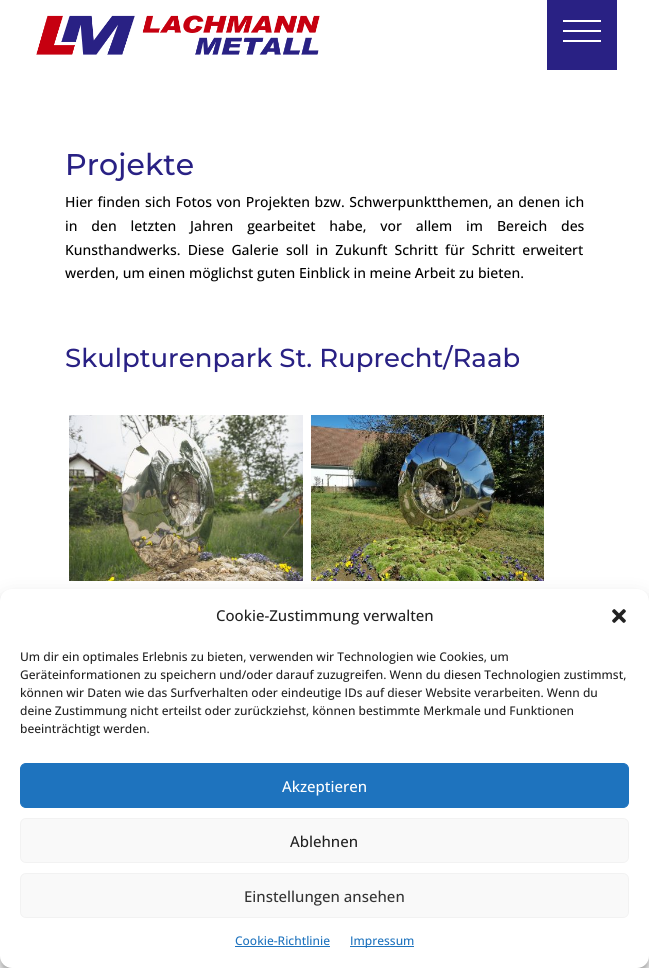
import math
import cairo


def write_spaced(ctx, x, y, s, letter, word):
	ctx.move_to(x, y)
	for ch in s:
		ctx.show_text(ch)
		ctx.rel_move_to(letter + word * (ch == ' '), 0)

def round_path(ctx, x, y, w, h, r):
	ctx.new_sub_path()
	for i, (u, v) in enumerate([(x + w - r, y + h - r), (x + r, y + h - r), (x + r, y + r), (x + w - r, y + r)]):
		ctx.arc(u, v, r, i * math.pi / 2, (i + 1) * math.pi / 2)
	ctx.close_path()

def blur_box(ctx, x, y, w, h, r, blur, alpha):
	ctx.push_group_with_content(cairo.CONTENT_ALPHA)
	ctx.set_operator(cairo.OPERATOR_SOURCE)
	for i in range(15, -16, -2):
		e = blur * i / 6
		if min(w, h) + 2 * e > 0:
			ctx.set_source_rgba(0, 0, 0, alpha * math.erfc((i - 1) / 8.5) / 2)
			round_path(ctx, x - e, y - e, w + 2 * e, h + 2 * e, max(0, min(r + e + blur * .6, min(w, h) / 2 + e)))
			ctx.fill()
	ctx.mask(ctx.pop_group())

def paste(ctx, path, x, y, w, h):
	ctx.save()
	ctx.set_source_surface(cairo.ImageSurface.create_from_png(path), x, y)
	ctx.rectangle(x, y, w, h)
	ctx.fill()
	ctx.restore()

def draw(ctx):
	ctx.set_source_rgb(1, 1, 1)
	ctx.paint()
	paste(ctx, 'media/1.png', 36, 15, 284, 40)
	ctx.set_source_rgb(0.161, 0.129, 0.518)
	ctx.rectangle(547, 0, 70, 70)
	ctx.fill()
	ctx.set_source_rgb(1, 1, 1)
	ctx.rectangle(563, 20, 38, 2)
	ctx.rectangle(563, 30, 38, 2)
	ctx.rectangle(563, 40, 38, 2)
	ctx.fill()
	ctx.select_font_face('Montserrat Thin')
	ctx.set_font_size(30)
	ctx.set_source_rgb(0.161, 0.129, 0.518)
	ctx.move_to(65, 175)
	ctx.show_text('Projekte')
	ctx.select_font_face('Open Sans Medium')
	ctx.set_font_size(14)
	ctx.set_source_rgb(0, 0, 0)
	write_spaced(ctx, 65, 207, 'Hier finden sich Fotos von Projekten bzw. Schwerpunktthemen, an denen ich', 0, 1)
	write_spaced(ctx, 65, 231, 'in den letzten Jahren gearbeitet habe, vor allem im Bereich des', 0, 10.25)
	write_spaced(ctx, 65, 255, 'Kunsthandwerks. Diese Galerie soll in Zukunft Schritt für Schritt erweitert', 0, 3.5)
	ctx.move_to(65, 278)
	ctx.show_text('werden, um einen möglichst guten Einblick in meine Arbeit zu bieten.')
	ctx.select_font_face('Montserrat Thin')
	ctx.set_font_size(26)
	ctx.set_source_rgb(0.161, 0.129, 0.518)
	ctx.move_to(65, 367)
	ctx.show_text('Skulpturenpark St. Ruprecht/Raab')
	paste(ctx, 'media/2.png', 69, 415, 234, 166)
	paste(ctx, 'media/3.png', 311, 415, 233, 166)
	ctx.set_source_rgb(0, 0, 0)
	blur_box(ctx, 0, 595, 649, 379, 12, 3, 0.23)
	blur_box(ctx, 0, 599, 649, 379, 12, 10, 0.19)
	ctx.set_source_rgb(1, 1, 1)
	round_path(ctx, 0, 589, 649, 379, 12)
	ctx.fill()
	ctx.select_font_face('Open Sans Medium')
	ctx.set_font_size(15)
	ctx.set_source_rgb(0.133, 0.133, 0.133)
	ctx.move_to(216, 621)
	ctx.show_text('Cookie-Zustimmung verwalten')
	paste(ctx, 'media/4.png', 612, 609, 14, 14)
	ctx.set_font_size(12)
	for x, y, s in [
		(20, 661, 'Um dir ein optimales Erlebnis zu bieten, verwenden wir Technologien wie Cookies, um'),
		(20, 679, 'Geräteinformationen zu speichern und/oder darauf zuzugreifen. Wenn du diesen Technologien zustimmst,'),
		(20, 697, 'können wir Daten wie das Surfverhalten oder eindeutige IDs auf dieser Website verarbeiten. Wenn du'),
		(20, 715, 'deine Zustimmung nicht erteilst oder zurückziehst, können bestimmte Merkmale und Funktionen'),
		(20, 733, 'beeinträchtigt werden.'),
	]:
		ctx.move_to(x, y)
		ctx.show_text(s)
	ctx.set_source_rgb(0.118, 0.451, 0.745)
	round_path(ctx, 20.5, 763.5, 608, 44, 5.5)
	ctx.fill_preserve()
	ctx.set_line_width(1)
	ctx.stroke()
	ctx.set_font_size(15)
	ctx.set_source_rgb(1, 1, 1)
	ctx.move_to(282, 792)
	ctx.show_text('Akzeptieren')
	ctx.set_source_rgb(0.976, 0.976, 0.976)
	round_path(ctx, 20.5, 818.5, 608, 44, 5.5)
	ctx.fill_preserve()
	ctx.set_source_rgb(0.949, 0.949, 0.949)
	ctx.stroke()
	ctx.set_source_rgb(0.133, 0.133, 0.133)
	ctx.move_to(290, 847)
	ctx.show_text('Ablehnen')
	ctx.set_source_rgb(0.976, 0.976, 0.976)
	round_path(ctx, 20.5, 873.5, 608, 44, 5.5)
	ctx.fill_preserve()
	ctx.set_source_rgb(0.949, 0.949, 0.949)
	ctx.stroke()
	ctx.set_source_rgb(0.2, 0.2, 0.2)
	ctx.move_to(244, 902)
	ctx.show_text('Einstellungen ansehen')
	ctx.set_font_size(12)
	ctx.set_source_rgb(0.118, 0.451, 0.745)
	ctx.move_to(235, 945)
	ctx.show_text('Cookie-Richtlinie')
	ctx.rectangle(235, 946, 95, 1)
	ctx.fill()
	ctx.rectangle(350, 946, 64, 1)
	ctx.fill()
	ctx.move_to(350, 945)
	ctx.show_text('Impressum')


surface = cairo.ImageSurface(cairo.FORMAT_RGB24, 649, 968)
ctx = cairo.Context(surface)
options = cairo.FontOptions()
options.set_hint_metrics(cairo.HINT_METRICS_OFF)
options.set_hint_style(cairo.HINT_STYLE_NONE)
ctx.set_font_options(options)
ctx.set_miter_limit(4)
draw(ctx)
surface.write_to_png('image.png')
